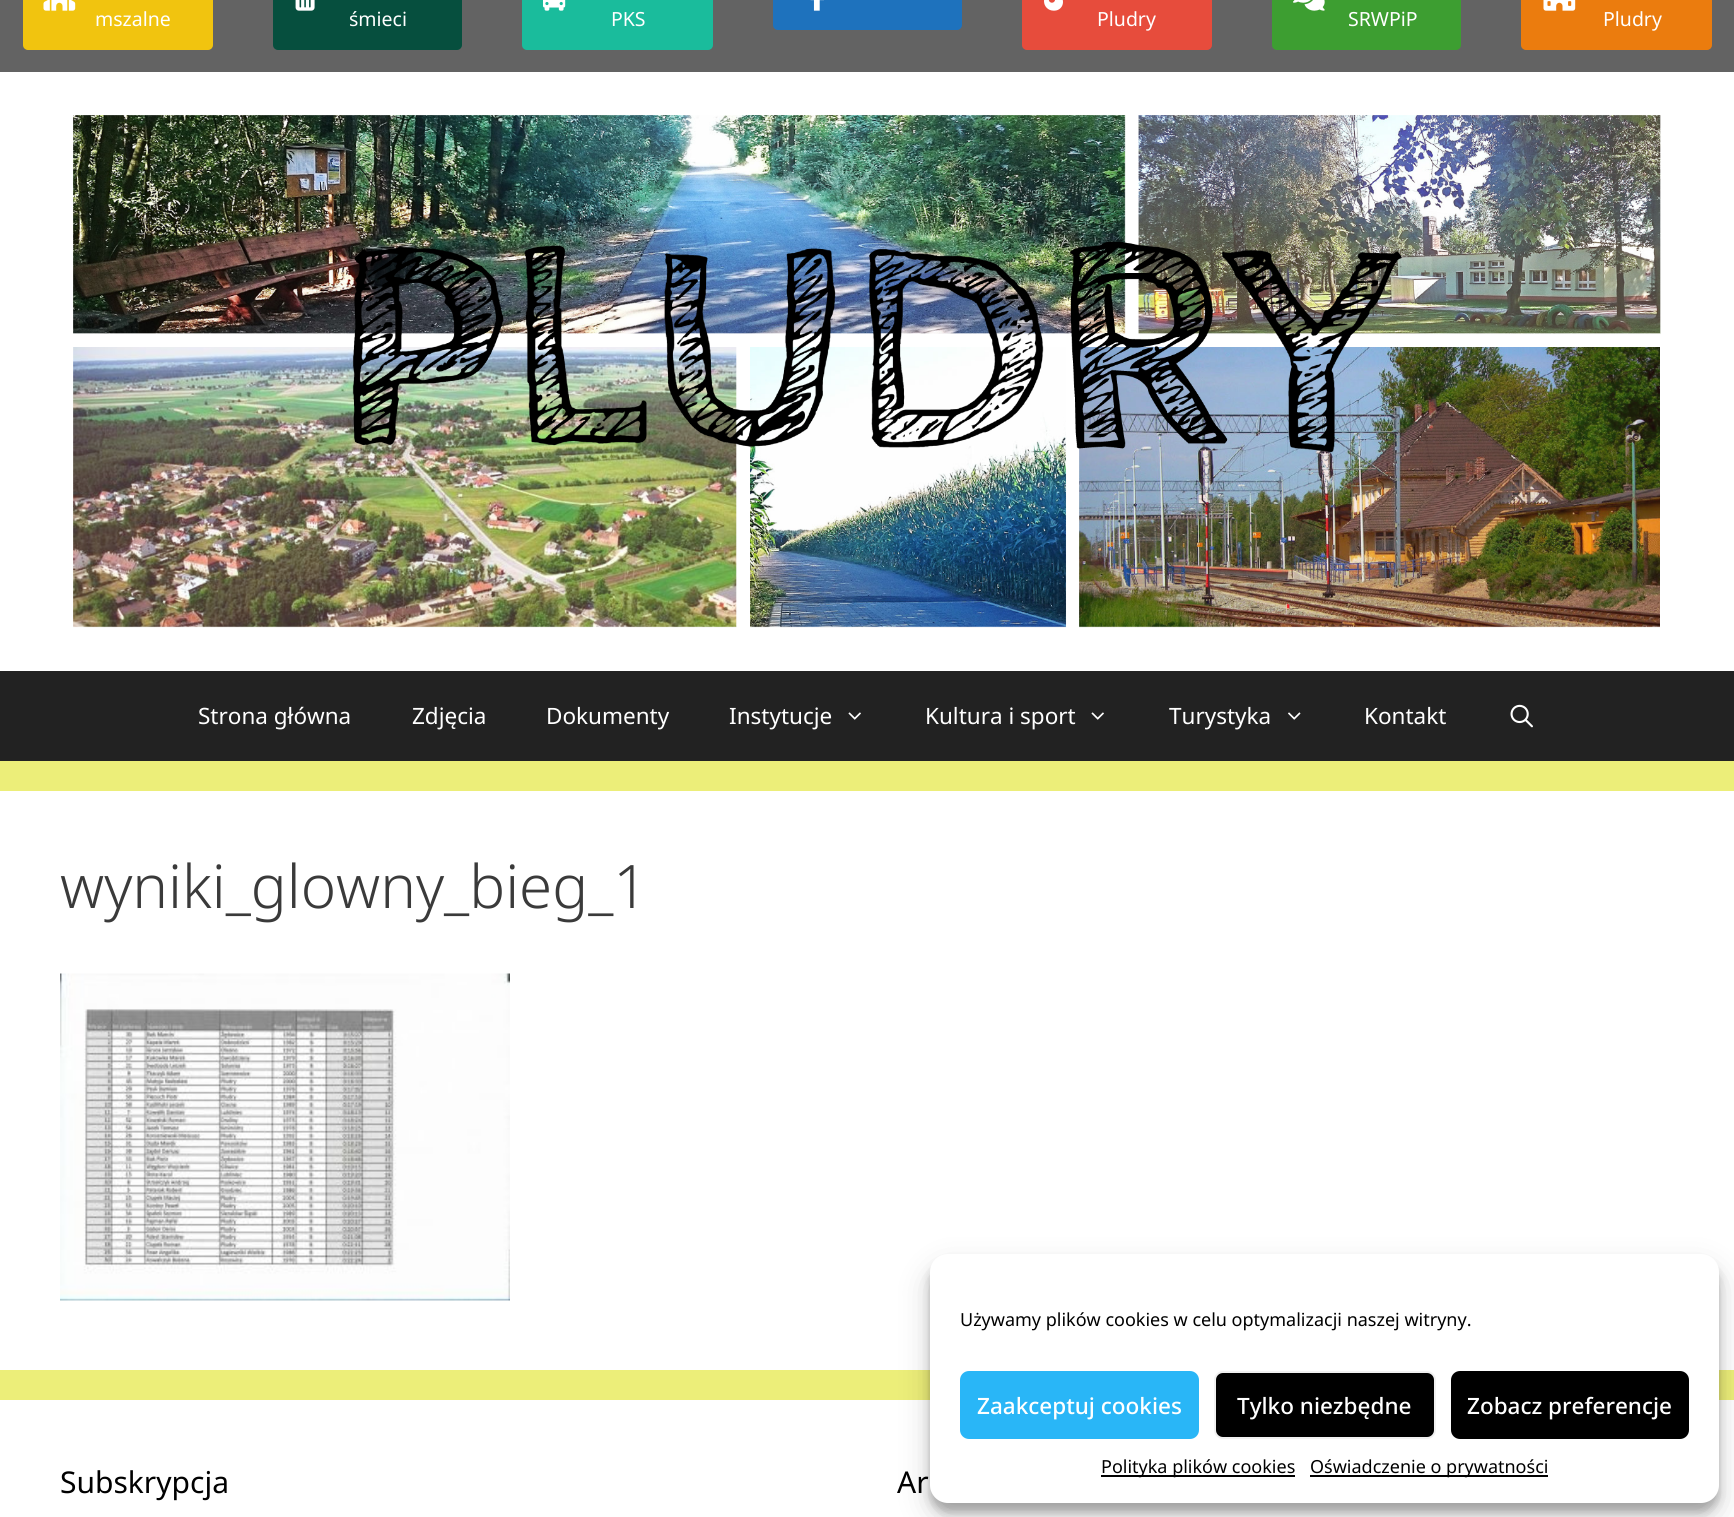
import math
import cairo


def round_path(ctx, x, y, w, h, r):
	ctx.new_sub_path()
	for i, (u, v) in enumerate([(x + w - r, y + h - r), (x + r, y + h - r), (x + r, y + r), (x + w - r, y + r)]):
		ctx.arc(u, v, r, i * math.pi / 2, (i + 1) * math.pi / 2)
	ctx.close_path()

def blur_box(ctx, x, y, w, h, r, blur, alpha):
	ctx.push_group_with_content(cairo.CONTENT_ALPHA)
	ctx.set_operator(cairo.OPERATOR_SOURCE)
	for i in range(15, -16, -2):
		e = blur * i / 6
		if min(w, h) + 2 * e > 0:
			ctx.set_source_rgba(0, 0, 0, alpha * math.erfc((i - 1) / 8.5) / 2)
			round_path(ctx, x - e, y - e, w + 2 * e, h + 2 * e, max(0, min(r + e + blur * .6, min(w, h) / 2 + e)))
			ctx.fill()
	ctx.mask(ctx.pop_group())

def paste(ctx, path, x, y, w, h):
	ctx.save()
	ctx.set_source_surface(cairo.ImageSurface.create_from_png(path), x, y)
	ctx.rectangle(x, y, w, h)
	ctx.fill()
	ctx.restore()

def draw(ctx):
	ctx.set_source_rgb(0.925, 0.933, 0.475)
	ctx.paint()
	ctx.set_source_rgb(0.388, 0.388, 0.388)
	ctx.rectangle(0, 0, 1734, 72)
	ctx.fill()
	ctx.set_source_rgb(0.945, 0.769, 0.059)
	round_path(ctx, 24, -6, 188, 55, 4)
	ctx.fill_preserve()
	ctx.stroke()
	paste(ctx, 'media/1.png', 43, 0, 33, 11)
	ctx.select_font_face('Noto Sans')
	ctx.set_font_size(19.5)
	ctx.set_source_rgb(1, 1, 1)
	ctx.move_to(95, 26)
	ctx.show_text('mszalne')
	ctx.set_source_rgb(0.024, 0.31, 0.243)
	round_path(ctx, 274, -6, 187, 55, 4)
	ctx.fill_preserve()
	ctx.stroke()
	paste(ctx, 'media/2.png', 295, 0, 20, 11)
	ctx.set_source_rgb(1, 1, 1)
	ctx.move_to(349, 26)
	ctx.show_text('śmieci')
	ctx.set_source_rgb(0.102, 0.737, 0.612)
	round_path(ctx, 523, -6, 189, 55, 4)
	ctx.fill_preserve()
	ctx.stroke()
	paste(ctx, 'media/3.png', 543, 0, 23, 11)
	ctx.set_source_rgb(1, 1, 1)
	ctx.move_to(611, 26)
	ctx.show_text('PKS')
	ctx.set_source_rgb(0.118, 0.447, 0.741)
	round_path(ctx, 774, -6, 187, 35, 4)
	ctx.fill_preserve()
	ctx.stroke()
	paste(ctx, 'media/4.png', 810, 0, 14, 11)
	ctx.set_source_rgb(0.906, 0.298, 0.235)
	round_path(ctx, 1023, -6, 188, 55, 4)
	ctx.fill_preserve()
	ctx.stroke()
	paste(ctx, 'media/5.png', 1044, 0, 19, 11)
	ctx.set_source_rgb(1, 1, 1)
	ctx.move_to(1097, 26)
	ctx.show_text('Pludry')
	ctx.set_source_rgb(0.239, 0.62, 0.192)
	round_path(ctx, 1273, -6, 187, 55, 4)
	ctx.fill_preserve()
	ctx.stroke()
	paste(ctx, 'media/6.png', 1293, 0, 32, 11)
	ctx.set_source_rgb(1, 1, 1)
	ctx.move_to(1348, 26)
	ctx.show_text('SRWPiP')
	ctx.set_source_rgb(0.918, 0.486, 0.055)
	round_path(ctx, 1522, -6, 189, 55, 4)
	ctx.fill_preserve()
	ctx.stroke()
	paste(ctx, 'media/7.png', 1543, 0, 33, 11)
	ctx.set_source_rgb(1, 1, 1)
	ctx.move_to(1603, 26)
	ctx.show_text('Pludry')
	ctx.rectangle(0, 72, 1734, 599)
	ctx.fill()
	paste(ctx, 'media/8.png', 73, 115, 1588, 513)
	ctx.set_source_rgb(0.133, 0.133, 0.133)
	ctx.rectangle(0, 671, 1734, 90)
	ctx.fill()
	ctx.set_font_size(22.5)
	ctx.set_source_rgb(1, 1, 1)
	for x, y, s in [
		(198, 724, 'Strona główna'),
		(412, 724, 'Zdjęcia'),
		(546, 724, 'Dokumenty'),
		(729, 724, 'Instytucje'),
	]:
		ctx.move_to(x, y)
		ctx.show_text(s)
	paste(ctx, 'media/9.png', 848, 712, 13, 8)
	ctx.move_to(925, 724)
	ctx.show_text('Kultura i sport')
	paste(ctx, 'media/9.png', 1091, 712, 13, 8)
	ctx.move_to(1169, 724)
	ctx.show_text('Turystyka')
	paste(ctx, 'media/10.png', 1288, 712, 13, 8)
	ctx.move_to(1364, 724)
	ctx.show_text('Kontakt')
	paste(ctx, 'media/11.png', 1510, 704, 23, 24)
	ctx.rectangle(0, 791, 1734, 579)
	ctx.fill()
	ctx.select_font_face('Noto Sans Light')
	ctx.set_font_size(60)
	ctx.set_source_rgb(0.227, 0.227, 0.227)
	ctx.move_to(60, 908)
	ctx.show_text('wyniki_glowny_bieg_1')
	paste(ctx, 'media/12.png', 60, 973, 450, 328)
	ctx.set_source_rgb(1, 1, 1)
	ctx.rectangle(0, 1400, 1734, 117)
	ctx.fill()
	ctx.set_source_rgb(0, 0, 0)
	blur_box(ctx, 930, 1263, 789, 249, 18, 4.5, 0.23)
	blur_box(ctx, 930, 1269, 789, 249, 18, 15, 0.19)
	ctx.set_source_rgb(1, 1, 1)
	round_path(ctx, 930, 1254, 789, 249, 18)
	ctx.fill()
	ctx.select_font_face('Noto Sans')
	ctx.set_font_size(18)
	ctx.set_source_rgb(0, 0, 0)
	ctx.move_to(960, 1326)
	ctx.show_text('Używamy plików cookies w celu optymalizacji naszej witryny.')
	ctx.set_source_rgb(0.161, 0.714, 0.965)
	round_path(ctx, 961, 1372, 237, 66, 8)
	ctx.fill_preserve()
	ctx.stroke()
	ctx.select_font_face('Noto Sans Medium')
	ctx.set_font_size(22.5)
	ctx.set_source_rgb(1, 1, 1)
	ctx.move_to(977, 1414)
	ctx.show_text('Zaakceptuj cookies')
	ctx.set_source_rgb(0, 0, 0)
	round_path(ctx, 1215, 1372, 220, 66, 8)
	ctx.fill_preserve()
	ctx.set_source_rgb(0.945, 0.945, 0.945)
	ctx.stroke()
	ctx.set_source_rgb(1, 1, 1)
	ctx.move_to(1237, 1414)
	ctx.show_text('Tylko niezbędne')
	ctx.set_source_rgb(0, 0, 0)
	round_path(ctx, 1452, 1372, 236, 66, 8)
	ctx.fill_preserve()
	ctx.stroke()
	ctx.set_source_rgb(1, 1, 1)
	ctx.move_to(1467, 1414)
	ctx.show_text('Zobacz preferencje')
	ctx.set_source_rgb(0, 0, 0)
	ctx.rectangle(1101, 1475, 194, 2)
	ctx.fill()
	ctx.select_font_face('Noto Sans')
	ctx.set_font_size(18)
	ctx.move_to(1101, 1473)
	ctx.show_text('Polityka plików cookies')
	ctx.rectangle(1310, 1475, 238, 2)
	ctx.fill()
	ctx.move_to(1310, 1473)
	ctx.show_text('Oświadczenie o prywatności')
	ctx.set_font_size(30)
	ctx.move_to(60, 1493)
	ctx.show_text('Subskrypcja')
	ctx.move_to(897, 1493)
	ctx.show_text('Ar')


surface = cairo.ImageSurface(cairo.FORMAT_RGB24, 1734, 1517)
ctx = cairo.Context(surface)
options = cairo.FontOptions()
options.set_hint_metrics(cairo.HINT_METRICS_OFF)
options.set_hint_style(cairo.HINT_STYLE_NONE)
ctx.set_font_options(options)
ctx.set_miter_limit(4)
draw(ctx)
surface.write_to_png('image.png')
